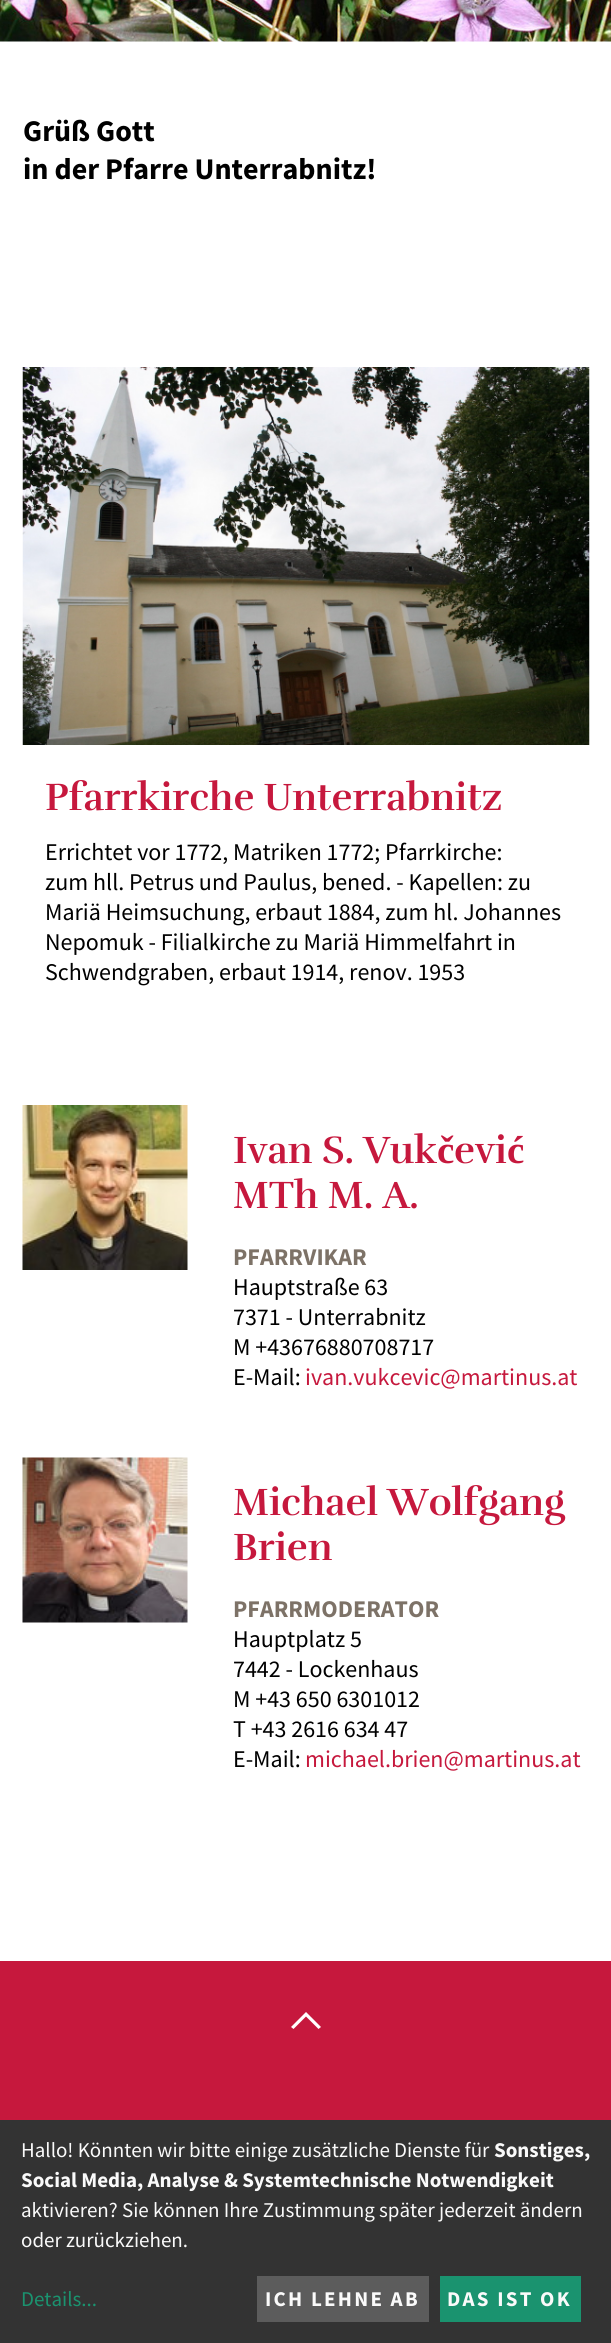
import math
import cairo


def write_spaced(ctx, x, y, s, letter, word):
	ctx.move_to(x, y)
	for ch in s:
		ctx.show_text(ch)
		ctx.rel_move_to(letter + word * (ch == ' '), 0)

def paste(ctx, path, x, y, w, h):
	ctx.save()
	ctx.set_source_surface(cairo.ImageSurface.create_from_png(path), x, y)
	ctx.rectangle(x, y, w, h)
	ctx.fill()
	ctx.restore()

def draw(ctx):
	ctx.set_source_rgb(1, 1, 1)
	ctx.paint()
	paste(ctx, 'media/1.png', 0, 0, 611, 42)
	ctx.select_font_face('Source Sans Pro', cairo.FONT_SLANT_NORMAL, cairo.FONT_WEIGHT_BOLD)
	ctx.set_font_size(30)
	ctx.set_source_rgb(0, 0, 0)
	ctx.move_to(23, 141)
	ctx.show_text('Grüß Gott')
	ctx.move_to(23, 179)
	ctx.show_text('in der Pfarre Unterrabnitz!')
	paste(ctx, 'media/2.png', 22, 367, 568, 378)
	ctx.select_font_face('Rufina', cairo.FONT_SLANT_NORMAL, cairo.FONT_WEIGHT_BOLD)
	ctx.set_font_size(39)
	ctx.set_source_rgb(0.776, 0.094, 0.239)
	ctx.move_to(45, 810)
	ctx.show_text('Pfarrkirche Unterrabnitz')
	ctx.select_font_face('Source Sans Pro')
	ctx.set_font_size(24)
	ctx.set_source_rgb(0, 0, 0)
	for x, y, s in [
		(45, 860, 'Errichtet vor 1772, Matriken 1772; Pfarrkirche:'),
		(45, 890, 'zum hll. Petrus und Paulus, bened. - Kapellen: zu'),
		(45, 920, 'Mariä Heimsuchung, erbaut 1884, zum hl. Johannes'),
		(45, 950, 'Nepomuk - Filialkirche zu Mariä Himmelfahrt in'),
		(45, 980, 'Schwendgraben, erbaut 1914, renov. 1953'),
	]:
		ctx.move_to(x, y)
		ctx.show_text(s)
	paste(ctx, 'media/3.png', 22, 1105, 166, 165)
	ctx.select_font_face('Rufina', cairo.FONT_SLANT_NORMAL, cairo.FONT_WEIGHT_BOLD)
	ctx.set_font_size(39)
	ctx.set_source_rgb(0.776, 0.094, 0.239)
	ctx.move_to(233, 1163)
	ctx.show_text('Ivan S. Vuk')
	ctx.select_font_face('Liberation Serif', cairo.FONT_SLANT_NORMAL, cairo.FONT_WEIGHT_BOLD)
	ctx.move_to(437, 1163)
	ctx.show_text('č')
	ctx.select_font_face('Rufina', cairo.FONT_SLANT_NORMAL, cairo.FONT_WEIGHT_BOLD)
	ctx.move_to(454, 1163)
	ctx.show_text('evi')
	ctx.select_font_face('Liberation Serif', cairo.FONT_SLANT_NORMAL, cairo.FONT_WEIGHT_BOLD)
	ctx.move_to(507, 1163)
	ctx.show_text('ć')
	ctx.select_font_face('Rufina', cairo.FONT_SLANT_NORMAL, cairo.FONT_WEIGHT_BOLD)
	ctx.move_to(233, 1208)
	ctx.show_text('MTh M. A.')
	ctx.select_font_face('Source Sans Pro', cairo.FONT_SLANT_NORMAL, cairo.FONT_WEIGHT_BOLD)
	ctx.set_font_size(24)
	ctx.set_source_rgb(0.49, 0.447, 0.404)
	ctx.move_to(233, 1265)
	ctx.show_text('PFARRVIKAR')
	ctx.select_font_face('Source Sans Pro')
	ctx.set_source_rgb(0, 0, 0)
	for x, y, s in [
		(233, 1295, 'Hauptstraße 63'),
		(233, 1325, '7371 - Unterrabnitz'),
		(233, 1355, 'M +43676880708717'),
		(233, 1385, 'E-Mail:'),
	]:
		ctx.move_to(x, y)
		ctx.show_text(s)
	ctx.set_source_rgb(0.776, 0.094, 0.239)
	ctx.move_to(305, 1385)
	ctx.show_text('ivan.vukcevic@martinus.at')
	paste(ctx, 'media/4.png', 22, 1457, 166, 166)
	ctx.select_font_face('Rufina', cairo.FONT_SLANT_NORMAL, cairo.FONT_WEIGHT_BOLD)
	ctx.set_font_size(39)
	ctx.move_to(233, 1515)
	ctx.show_text('Michael Wolfgang')
	ctx.move_to(233, 1560)
	ctx.show_text('Brien')
	ctx.select_font_face('Source Sans Pro', cairo.FONT_SLANT_NORMAL, cairo.FONT_WEIGHT_BOLD)
	ctx.set_font_size(24)
	ctx.set_source_rgb(0.49, 0.447, 0.404)
	ctx.move_to(233, 1617)
	ctx.show_text('PFARRMODERATOR')
	ctx.select_font_face('Source Sans Pro')
	ctx.set_source_rgb(0, 0, 0)
	for x, y, s in [
		(233, 1647, 'Hauptplatz 5'),
		(233, 1677, '7442 - Lockenhaus'),
		(233, 1707, 'M +43 650 6301012'),
		(233, 1737, 'T +43 2616 634 47'),
		(233, 1767, 'E-Mail:'),
	]:
		ctx.move_to(x, y)
		ctx.show_text(s)
	ctx.set_source_rgb(0.776, 0.094, 0.239)
	ctx.move_to(305, 1767)
	ctx.show_text('michael.brien@martinus.at')
	ctx.rectangle(0, 1961, 611, 159)
	ctx.fill()
	ctx.set_source_rgb(1, 1, 1)
	ctx.new_path()
	ctx.move_to(293.5, 2029)
	ctx.line_to(291, 2027)
	ctx.line_to(306, 2012)
	ctx.line_to(321, 2027)
	ctx.line_to(318.5, 2029)
	ctx.line_to(306, 2016.5)
	ctx.close_path()
	ctx.fill()
	ctx.set_source_rgb(0.2, 0.2, 0.2)
	ctx.rectangle(0, 2120, 611, 223)
	ctx.fill()
	ctx.set_font_size(21)
	ctx.set_source_rgb(0.98, 0.98, 0.98)
	ctx.move_to(21, 2157)
	ctx.show_text('Hallo! Könnten wir bitte einige zusätzliche Dienste für')
	ctx.select_font_face('Source Sans Pro', cairo.FONT_SLANT_NORMAL, cairo.FONT_WEIGHT_BOLD)
	ctx.move_to(494, 2157)
	ctx.show_text('Sonstiges,')
	ctx.move_to(21, 2187)
	ctx.show_text('Social Media, Analyse & Systemtechnische Notwendigkeit')
	ctx.select_font_face('Source Sans Pro')
	ctx.move_to(21, 2217)
	ctx.show_text('aktivieren? Sie können Ihre Zustimmung später jederzeit ändern')
	ctx.move_to(21, 2247)
	ctx.show_text('oder zurückziehen.')
	ctx.set_source_rgb(0.102, 0.576, 0.435)
	ctx.move_to(21, 2306)
	ctx.show_text('Details...')
	ctx.set_source_rgb(0.361, 0.361, 0.361)
	ctx.rectangle(257, 2276, 172, 46)
	ctx.fill()
	ctx.select_font_face('Source Sans Pro', cairo.FONT_SLANT_NORMAL, cairo.FONT_WEIGHT_BOLD)
	ctx.set_source_rgb(0.98, 0.98, 0.98)
	write_spaced(ctx, 265, 2306, 'ICH LEHNE AB', 2.25, 0)
	ctx.set_source_rgb(0.102, 0.576, 0.435)
	ctx.rectangle(440, 2276, 141, 46)
	ctx.fill()
	ctx.set_source_rgb(0.98, 0.98, 0.98)
	write_spaced(ctx, 447, 2306, 'DAS IST OK', 2.25, 0)


surface = cairo.ImageSurface(cairo.FORMAT_RGB24, 611, 2343)
ctx = cairo.Context(surface)
options = cairo.FontOptions()
options.set_hint_metrics(cairo.HINT_METRICS_OFF)
options.set_hint_style(cairo.HINT_STYLE_NONE)
ctx.set_font_options(options)
ctx.set_miter_limit(4)
draw(ctx)
surface.write_to_png('image.png')
